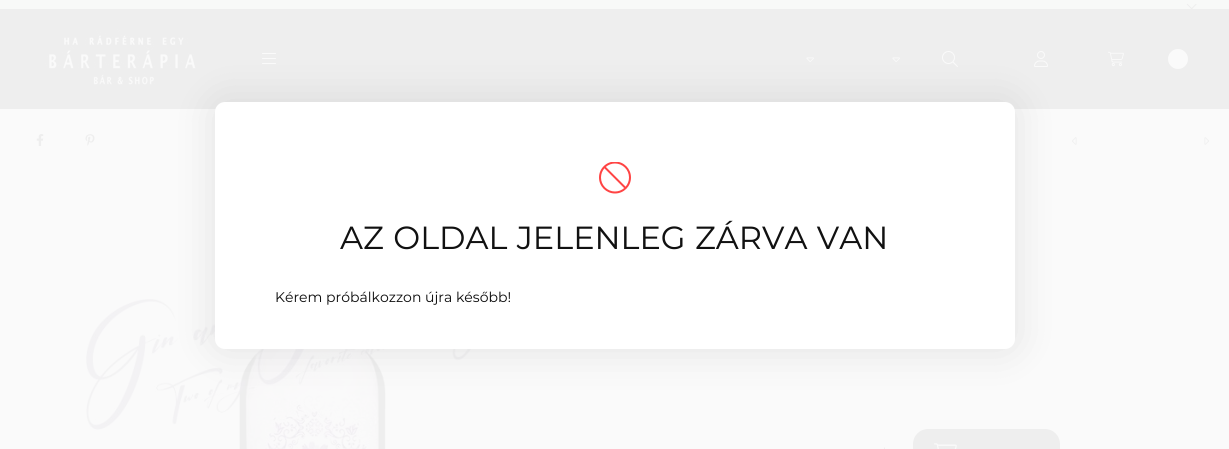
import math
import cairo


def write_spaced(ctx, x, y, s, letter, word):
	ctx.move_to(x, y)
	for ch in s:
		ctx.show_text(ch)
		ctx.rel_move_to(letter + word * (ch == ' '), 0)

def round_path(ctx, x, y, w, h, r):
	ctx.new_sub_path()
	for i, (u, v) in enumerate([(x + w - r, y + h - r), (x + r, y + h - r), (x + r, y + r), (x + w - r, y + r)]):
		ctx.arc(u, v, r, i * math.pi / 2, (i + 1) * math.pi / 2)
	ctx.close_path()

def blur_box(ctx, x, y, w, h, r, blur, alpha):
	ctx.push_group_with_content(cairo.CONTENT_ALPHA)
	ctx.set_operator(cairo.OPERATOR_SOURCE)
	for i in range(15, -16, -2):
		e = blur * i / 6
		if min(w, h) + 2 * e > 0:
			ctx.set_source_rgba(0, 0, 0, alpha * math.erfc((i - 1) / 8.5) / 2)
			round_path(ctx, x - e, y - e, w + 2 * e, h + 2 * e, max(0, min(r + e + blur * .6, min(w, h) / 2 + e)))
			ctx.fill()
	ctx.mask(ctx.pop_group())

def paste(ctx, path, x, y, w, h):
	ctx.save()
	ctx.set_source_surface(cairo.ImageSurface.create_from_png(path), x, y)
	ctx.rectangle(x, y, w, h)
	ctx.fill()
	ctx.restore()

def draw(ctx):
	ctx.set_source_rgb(0.98, 0.98, 0.98)
	ctx.paint()
	ctx.set_source_rgb(0.969, 0.976, 0.969)
	ctx.rectangle(0, 0, 1229, 9)
	ctx.fill()
	paste(ctx, 'media/1.png', 1186, 3, 11, 6)
	ctx.set_source_rgb(0.933, 0.933, 0.933)
	ctx.rectangle(0, 9, 1229, 100)
	ctx.fill()
	paste(ctx, 'media/2.png', 20, 29, 200, 60)
	paste(ctx, 'media/3.png', 262, 53, 14, 11)
	paste(ctx, 'media/4.png', 806, 57, 8, 5)
	paste(ctx, 'media/4.png', 892, 57, 8, 5)
	paste(ctx, 'media/5.png', 942, 51, 16, 16)
	paste(ctx, 'media/6.png', 1034, 51, 14, 16)
	paste(ctx, 'media/7.png', 1108, 51, 16, 16)
	ctx.set_source_rgb(0.98, 0.98, 0.98)
	ctx.arc(1178, 59, 10, 0, 2 * math.pi)
	ctx.fill()
	paste(ctx, 'media/8.png', 36, 134, 8, 12)
	paste(ctx, 'media/9.png', 85, 134, 10, 12)
	paste(ctx, 'media/10.png', 1072, 137, 5, 8)
	paste(ctx, 'media/11.png', 1204, 137, 5, 8)
	paste(ctx, 'media/12.png', 74, 209, 447, 240)
	paste(ctx, 'media/13.png', 884, 447, 1, 2)
	ctx.set_source_rgb(0.933, 0.933, 0.933)
	round_path(ctx, 913, 429, 147, 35, 15)
	ctx.fill()
	paste(ctx, 'media/14.png', 934, 443, 23, 6)
	ctx.set_source_rgb(0, 0, 0)
	blur_box(ctx, 215, 102, 800, 247, 10, 20, 0.1)
	ctx.set_source_rgb(1, 1, 1)
	round_path(ctx, 215, 102, 800, 247, 10)
	ctx.fill()
	paste(ctx, 'media/15.png', 599, 162, 32, 32)
	ctx.select_font_face('Montserrat')
	ctx.set_font_size(32)
	ctx.set_source_rgb(0.067, 0.067, 0.067)
	write_spaced(ctx, 340, 249, 'AZ OLDAL JELENLEG ZÁRVA VAN', 0, 1)
	ctx.set_font_size(14)
	ctx.move_to(275, 302)
	ctx.show_text('Kérem próbálkozzon újra később!')


surface = cairo.ImageSurface(cairo.FORMAT_RGB24, 1229, 449)
ctx = cairo.Context(surface)
options = cairo.FontOptions()
options.set_hint_metrics(cairo.HINT_METRICS_OFF)
options.set_hint_style(cairo.HINT_STYLE_NONE)
ctx.set_font_options(options)
ctx.set_miter_limit(4)
draw(ctx)
surface.write_to_png('image.png')
